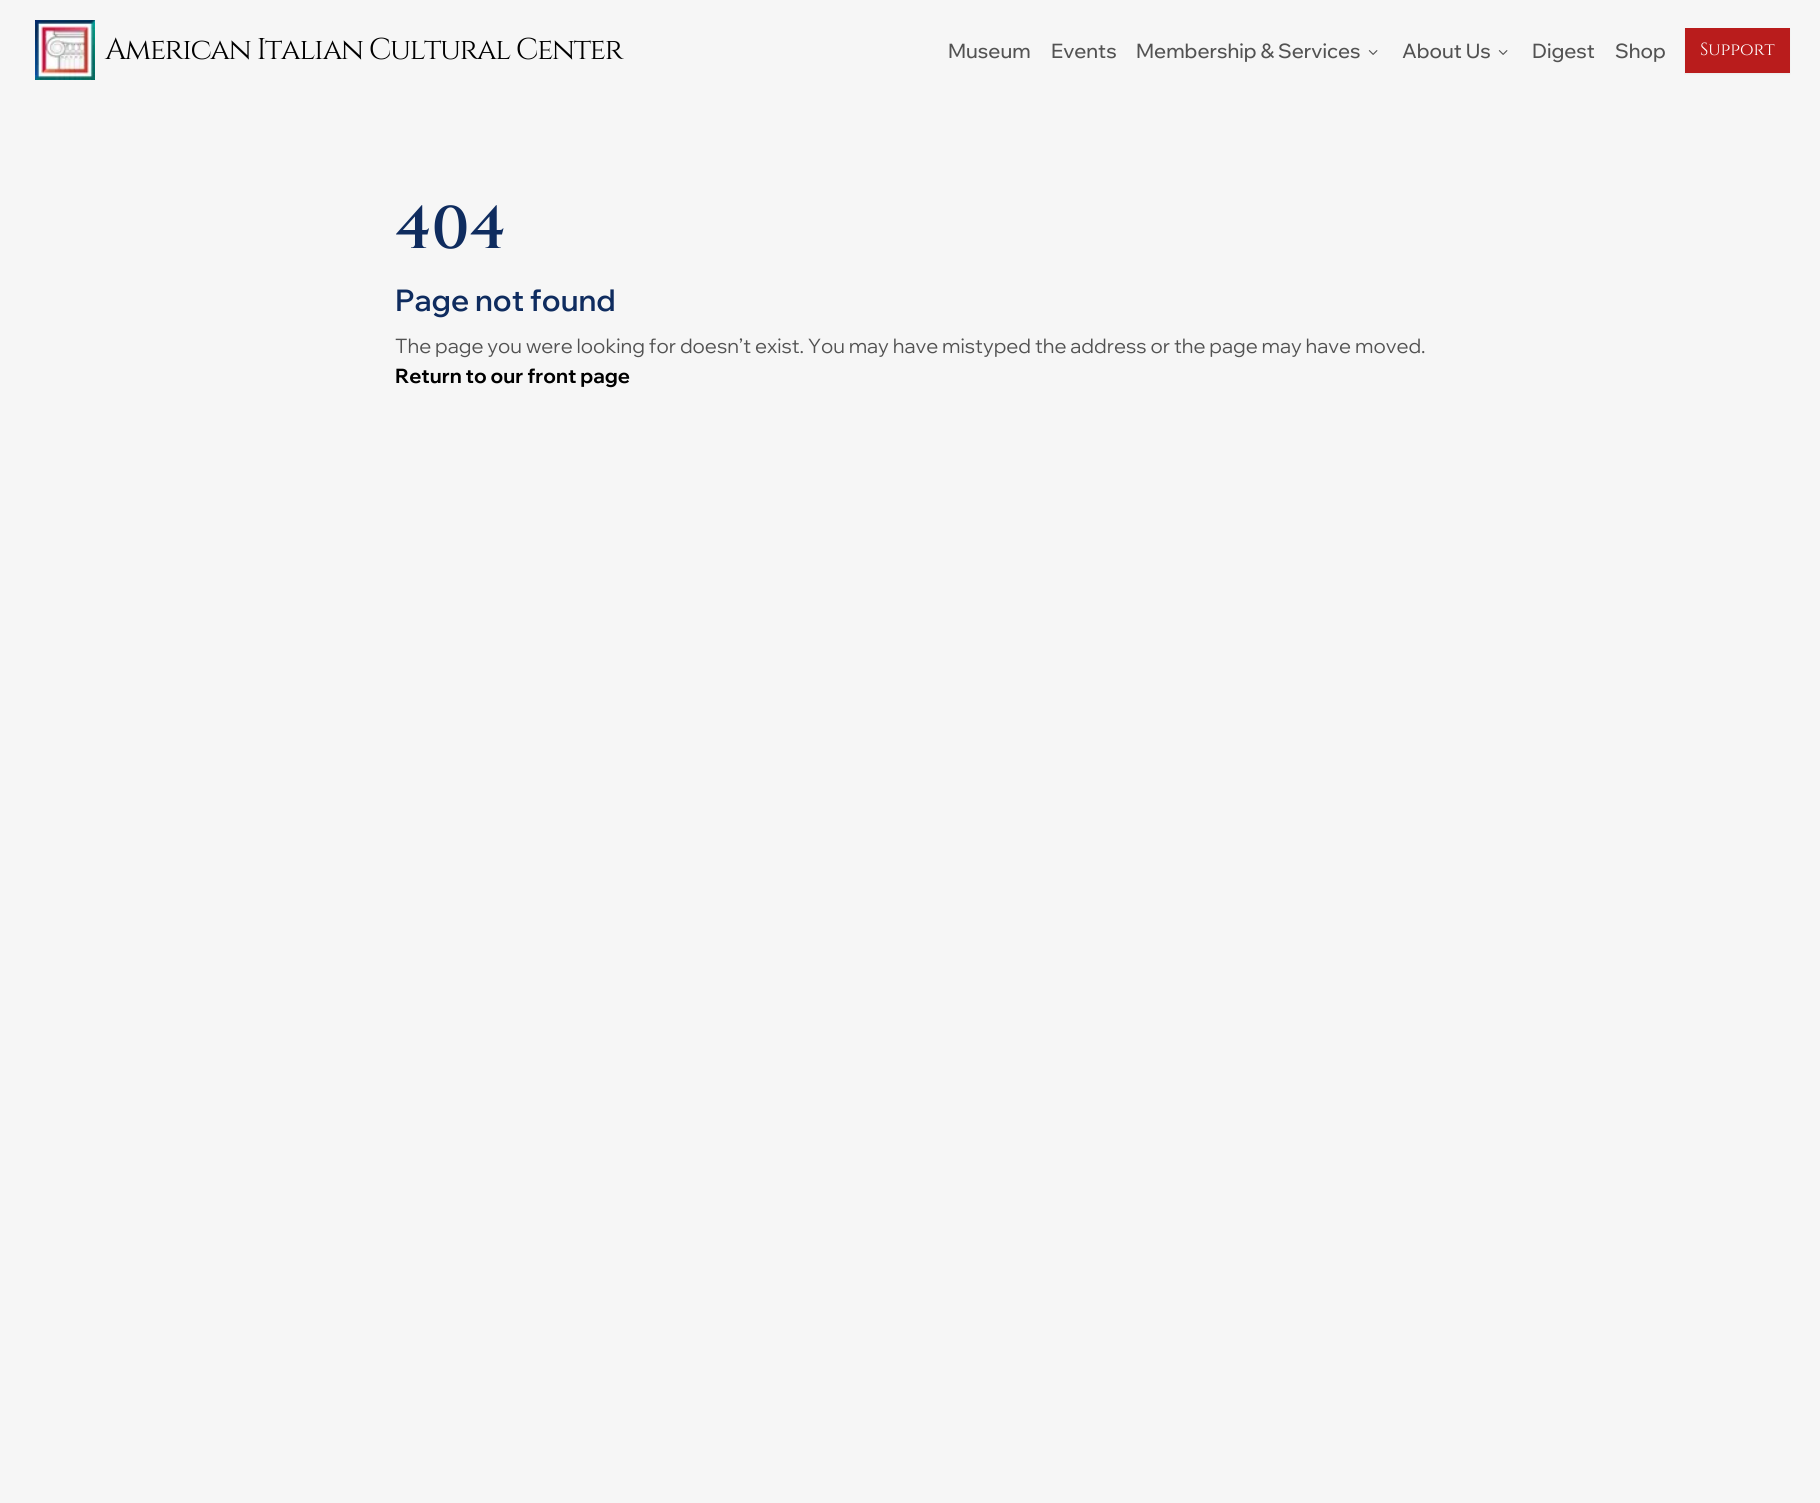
import math
import cairo


def write_spaced(ctx, x, y, s, letter, word):
	ctx.move_to(x, y)
	for ch in s:
		ctx.show_text(ch)
		ctx.rel_move_to(letter + word * (ch == ' '), 0)

def round_path(ctx, x, y, w, h, r):
	ctx.new_sub_path()
	for i, (u, v) in enumerate([(x + w - r, y + h - r), (x + r, y + h - r), (x + r, y + r), (x + w - r, y + r)]):
		ctx.arc(u, v, r, i * math.pi / 2, (i + 1) * math.pi / 2)
	ctx.close_path()

def blur_box(ctx, x, y, w, h, r, blur, alpha):
	ctx.push_group_with_content(cairo.CONTENT_ALPHA)
	ctx.set_operator(cairo.OPERATOR_SOURCE)
	for i in range(15, -16, -2):
		e = blur * i / 6
		if min(w, h) + 2 * e > 0:
			ctx.set_source_rgba(0, 0, 0, alpha * math.erfc((i - 1) / 8.5) / 2)
			round_path(ctx, x - e, y - e, w + 2 * e, h + 2 * e, max(0, min(r + e + blur * .6, min(w, h) / 2 + e)))
			ctx.fill()
	ctx.mask(ctx.pop_group())

def paste(ctx, path, x, y, w, h):
	ctx.save()
	ctx.set_source_surface(cairo.ImageSurface.create_from_png(path), x, y)
	ctx.rectangle(x, y, w, h)
	ctx.fill()
	ctx.restore()

def draw(ctx):
	ctx.set_source_rgb(0.961, 0.961, 0.961)
	ctx.paint()
	paste(ctx, 'media/1.png', 35, 20, 60, 60)
	ctx.select_font_face('Cinzel')
	ctx.set_font_size(30)
	ctx.set_source_rgb(0, 0, 0)
	write_spaced(ctx, 105, 59, 'American Italian Cultural Center', -1.5, 0)
	ctx.select_font_face('Wix Madefor Display Medium')
	ctx.set_font_size(20)
	ctx.set_source_rgb(0.322, 0.322, 0.322)
	for x, y, s in [
		(948, 58, 'Museum'),
		(1051, 58, 'Events'),
		(1136, 58, 'Membership & Services'),
	]:
		ctx.move_to(x, y)
		ctx.show_text(s)
	paste(ctx, 'media/2.png', 1368, 50, 10, 5)
	ctx.move_to(1402, 58)
	ctx.show_text('About Us')
	paste(ctx, 'media/2.png', 1498, 50, 10, 5)
	ctx.move_to(1532, 58)
	ctx.show_text('Digest')
	ctx.move_to(1615, 58)
	ctx.show_text('Shop')
	ctx.set_source_rgb(0, 0, 0)
	blur_box(ctx, 1685, 29, 105, 45, 0, 1, 0.05)
	ctx.set_source_rgb(0.725, 0.11, 0.11)
	ctx.rectangle(1685, 28, 105, 45)
	ctx.fill()
	ctx.select_font_face('Cinzel')
	ctx.set_font_size(17.5)
	ctx.set_source_rgb(1, 1, 1)
	ctx.move_to(1700, 55)
	ctx.show_text('Support')
	ctx.select_font_face('Cinzel SemiBold')
	ctx.set_font_size(60)
	ctx.set_source_rgb(0.059, 0.173, 0.373)
	ctx.move_to(395, 248)
	ctx.show_text('404')
	ctx.select_font_face('Wix Madefor Display SemiBold')
	ctx.set_font_size(30)
	ctx.move_to(395, 311)
	ctx.show_text('Page not found')
	ctx.select_font_face('Wix Madefor Display')
	ctx.set_font_size(20)
	ctx.set_source_rgb(0.322, 0.322, 0.322)
	ctx.move_to(395, 353)
	ctx.show_text('The page you were looking for doesn’t exist. You may have mistyped the address or the page may have moved.')
	ctx.select_font_face('Wix Madefor Display', cairo.FONT_SLANT_NORMAL, cairo.FONT_WEIGHT_BOLD)
	ctx.set_source_rgb(0, 0, 0)
	ctx.move_to(395, 383)
	ctx.show_text('Return to our front page')


surface = cairo.ImageSurface(cairo.FORMAT_RGB24, 1820, 1503)
ctx = cairo.Context(surface)
options = cairo.FontOptions()
options.set_hint_metrics(cairo.HINT_METRICS_OFF)
options.set_hint_style(cairo.HINT_STYLE_NONE)
ctx.set_font_options(options)
ctx.set_miter_limit(4)
draw(ctx)
surface.write_to_png('image.png')
